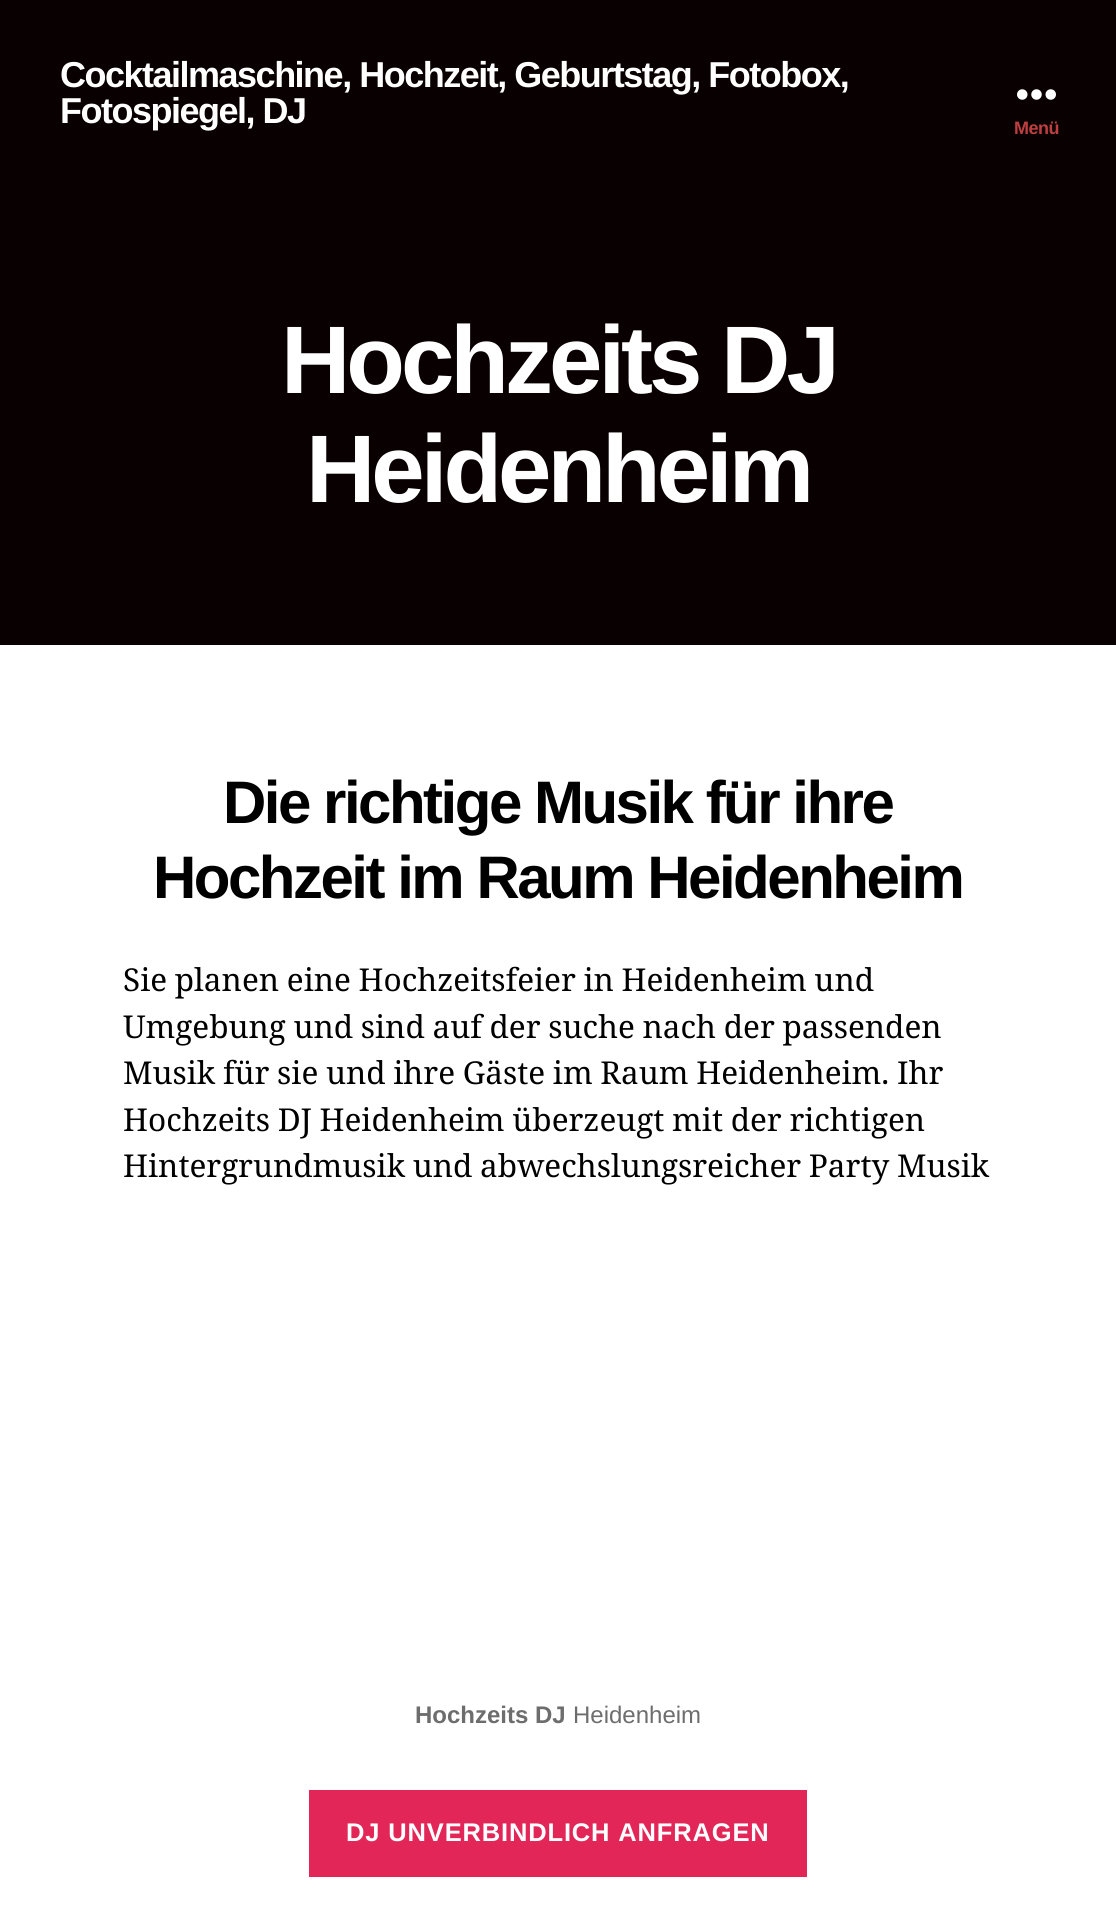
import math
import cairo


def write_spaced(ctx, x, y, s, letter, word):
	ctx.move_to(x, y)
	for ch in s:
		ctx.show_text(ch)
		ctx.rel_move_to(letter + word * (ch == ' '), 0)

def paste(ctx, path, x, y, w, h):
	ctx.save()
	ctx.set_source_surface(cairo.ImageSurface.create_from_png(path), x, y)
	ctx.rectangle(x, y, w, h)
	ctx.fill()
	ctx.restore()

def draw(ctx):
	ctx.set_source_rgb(1, 1, 1)
	ctx.paint()
	ctx.set_source_rgb(0.039, 0, 0.004)
	ctx.rectangle(0, 0, 1116, 645)
	ctx.fill()
	ctx.select_font_face('Liberation Sans', cairo.FONT_SLANT_NORMAL, cairo.FONT_WEIGHT_BOLD)
	ctx.set_font_size(36)
	ctx.set_source_rgb(1, 1, 1)
	write_spaced(ctx, 60, 87, 'Cocktailmaschine, Hochzeit, Geburtstag, Fotobox,', -1.5, 0)
	write_spaced(ctx, 60, 123, 'Fotospiegel, DJ', -1.5, 0)
	paste(ctx, 'media/1.png', 1017, 89, 39, 11)
	ctx.set_font_size(18)
	ctx.set_source_rgb(0.749, 0.247, 0.255)
	write_spaced(ctx, 1014, 134, 'Menü', -0.5, 0)
	ctx.set_font_size(96)
	ctx.set_source_rgb(1, 1, 1)
	write_spaced(ctx, 281, 393, 'Hochzeits DJ', -4, 0)
	write_spaced(ctx, 306, 502, 'Heidenheim', -4, 0)
	ctx.set_font_size(60)
	ctx.set_source_rgb(0, 0, 0)
	write_spaced(ctx, 223, 823, 'Die richtige Musik für ihre', -2.5, 0)
	write_spaced(ctx, 153, 898, 'Hochzeit im Raum Heidenheim', -2.5, 0)
	ctx.select_font_face('Noto Serif')
	ctx.set_font_size(31.5)
	for x, y, s in [
		(123, 991, 'Sie planen eine Hochzeitsfeier in Heidenheim und'),
		(123, 1038, 'Umgebung und sind auf der suche nach der passenden'),
		(123, 1084, 'Musik für sie und ihre Gäste im Raum Heidenheim. Ihr'),
		(123, 1131, 'Hochzeits DJ Heidenheim überzeugt mit der richtigen'),
		(123, 1177, 'Hintergrundmusik und abwechslungsreicher Party Musik'),
	]:
		write_spaced(ctx, x, y, s, 0, -0.5)
	ctx.select_font_face('Liberation Sans', cairo.FONT_SLANT_NORMAL, cairo.FONT_WEIGHT_BOLD)
	ctx.set_font_size(24)
	ctx.set_source_rgb(0.427, 0.427, 0.427)
	ctx.move_to(415, 1723)
	ctx.show_text('Hochzeits DJ')
	ctx.select_font_face('Liberation Sans')
	ctx.move_to(573, 1723)
	ctx.show_text('Heidenheim')
	ctx.set_source_rgb(0.886, 0.149, 0.345)
	ctx.rectangle(309, 1790, 498, 87)
	ctx.fill()
	ctx.select_font_face('Liberation Sans', cairo.FONT_SLANT_NORMAL, cairo.FONT_WEIGHT_BOLD)
	ctx.set_font_size(25.5)
	ctx.set_source_rgb(1, 1, 1)
	write_spaced(ctx, 346, 1841, 'DJ UNVERBINDLICH ANFRAGEN', 0.85, 0)


surface = cairo.ImageSurface(cairo.FORMAT_RGB24, 1116, 1928)
ctx = cairo.Context(surface)
options = cairo.FontOptions()
options.set_hint_metrics(cairo.HINT_METRICS_OFF)
options.set_hint_style(cairo.HINT_STYLE_NONE)
ctx.set_font_options(options)
ctx.set_miter_limit(4)
draw(ctx)
surface.write_to_png('image.png')
